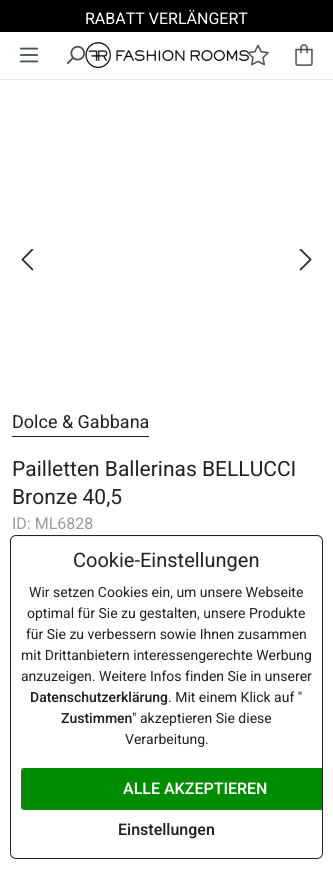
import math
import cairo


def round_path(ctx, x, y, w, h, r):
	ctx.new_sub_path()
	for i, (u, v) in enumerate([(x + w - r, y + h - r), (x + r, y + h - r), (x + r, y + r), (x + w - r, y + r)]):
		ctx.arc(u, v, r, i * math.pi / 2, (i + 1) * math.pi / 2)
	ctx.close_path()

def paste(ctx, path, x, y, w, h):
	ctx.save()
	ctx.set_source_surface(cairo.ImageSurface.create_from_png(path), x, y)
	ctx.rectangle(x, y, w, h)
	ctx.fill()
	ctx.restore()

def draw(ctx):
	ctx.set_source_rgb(1, 1, 1)
	ctx.paint()
	ctx.set_source_rgb(0, 0, 0)
	ctx.rectangle(0, 0, 333, 32)
	ctx.fill()
	ctx.select_font_face('Heebo')
	ctx.set_font_size(16)
	ctx.set_source_rgb(1, 1, 1)
	ctx.move_to(85, 24)
	ctx.show_text('RABATT VERLÄNGERT')
	ctx.set_source_rgb(0.89, 0.894, 0.902)
	ctx.rectangle(0, 79, 333, 1)
	ctx.fill()
	paste(ctx, 'media/1.png', 85, 42, 165, 26)
	paste(ctx, 'media/2.png', 19, 47, 20, 16)
	paste(ctx, 'media/3.png', 66, 45, 19, 20)
	paste(ctx, 'media/4.png', 247, 44, 22, 22)
	paste(ctx, 'media/5.png', 295, 44, 18, 22)
	paste(ctx, 'media/6.png', 21, 249, 13, 22)
	paste(ctx, 'media/7.png', 299, 249, 13, 22)
	ctx.set_font_size(18)
	ctx.set_source_rgb(0.133, 0.133, 0.133)
	ctx.move_to(12, 428)
	ctx.show_text('Dolce & Gabbana')
	ctx.rectangle(12, 436, 137, 1)
	ctx.fill()
	ctx.set_font_size(21)
	ctx.move_to(12, 476)
	ctx.show_text('Pailletten Ballerinas BELLUCCI')
	ctx.move_to(12, 504)
	ctx.show_text('Bronze 40,5')
	ctx.set_font_size(16)
	ctx.set_source_rgb(0.6, 0.6, 0.6)
	ctx.move_to(12, 529)
	ctx.show_text('ID: ML6828')
	ctx.set_source_rgb(0.941, 0.941, 0.941)
	ctx.new_path()
	ctx.move_to(16, 537)
	ctx.line_to(317, 537)
	ctx.curve_to(320, 537, 322, 539, 322, 542)
	ctx.curve_to(322, 539, 320, 536, 317, 536)
	ctx.line_to(16, 536)
	ctx.curve_to(13, 536, 11, 539, 11, 542)
	ctx.curve_to(11, 539, 13, 537, 16, 537)
	ctx.close_path()
	ctx.fill()
	round_path(ctx, 10.5, 535.5, 312, 323, 5.5)
	ctx.set_source_rgb(0.133, 0.133, 0.133)
	ctx.set_line_width(1)
	ctx.stroke()
	ctx.set_font_size(20)
	ctx.move_to(73, 567)
	ctx.show_text('Cookie-Einstellungen')
	ctx.set_font_size(14)
	for x, y, s in [
		(29, 597, 'Wir setzen Cookies ein, um unsere Webseite'),
		(27, 618, 'optimal für Sie zu gestalten, unsere Produkte'),
		(26, 639, 'für Sie zu verbessern sowie Ihnen zusammen'),
		(21, 660, 'mit Drittanbietern interessengerechte Werbung'),
		(21, 681, 'anzuzeigen. Weitere Infos finden Sie in unserer'),
	]:
		ctx.move_to(x, y)
		ctx.show_text(s)
	ctx.select_font_face('Heebo Medium')
	ctx.move_to(30, 702)
	ctx.show_text('Datenschutzerklärung')
	ctx.select_font_face('Heebo')
	ctx.move_to(168, 702)
	ctx.show_text('. Mit einem Klick auf "')
	ctx.select_font_face('Heebo Medium')
	ctx.move_to(61, 723)
	ctx.show_text('Zustimmen')
	ctx.select_font_face('Heebo')
	ctx.move_to(132, 723)
	ctx.show_text('" akzeptieren Sie diese')
	ctx.move_to(125, 744)
	ctx.show_text('Verarbeitung.')
	ctx.set_source_rgb(0, 0.549, 0)
	ctx.new_path()
	ctx.move_to(24, 769)
	ctx.line_to(322, 769)
	ctx.line_to(322, 809)
	ctx.line_to(24, 809)
	ctx.curve_to(23, 809, 22, 808, 22, 807)
	ctx.line_to(22, 771)
	ctx.curve_to(22, 770, 23, 769, 24, 769)
	ctx.close_path()
	ctx.fill()
	ctx.new_path()
	ctx.move_to(24, 768)
	ctx.curve_to(22, 768, 21, 769, 21, 771)
	ctx.line_to(21, 807)
	ctx.curve_to(21, 809, 22, 810, 24, 810)
	ctx.line_to(322, 810)
	ctx.line_to(322, 809)
	ctx.line_to(24, 809)
	ctx.curve_to(23, 809, 22, 808, 22, 807)
	ctx.line_to(22, 771)
	ctx.curve_to(22, 770, 23, 769, 24, 769)
	ctx.line_to(322, 769)
	ctx.line_to(322, 768)
	ctx.close_path()
	ctx.fill()
	ctx.select_font_face('Heebo Medium')
	ctx.set_font_size(16)
	ctx.set_source_rgb(1, 1, 1)
	ctx.move_to(123, 794)
	ctx.show_text('ALLE AKZEPTIEREN')
	ctx.set_source_rgb(0.133, 0.133, 0.133)
	ctx.move_to(118, 835)
	ctx.show_text('Einstellungen')


surface = cairo.ImageSurface(cairo.FORMAT_RGB24, 333, 869)
ctx = cairo.Context(surface)
options = cairo.FontOptions()
options.set_hint_metrics(cairo.HINT_METRICS_OFF)
options.set_hint_style(cairo.HINT_STYLE_NONE)
ctx.set_font_options(options)
ctx.set_miter_limit(4)
draw(ctx)
surface.write_to_png('image.png')
